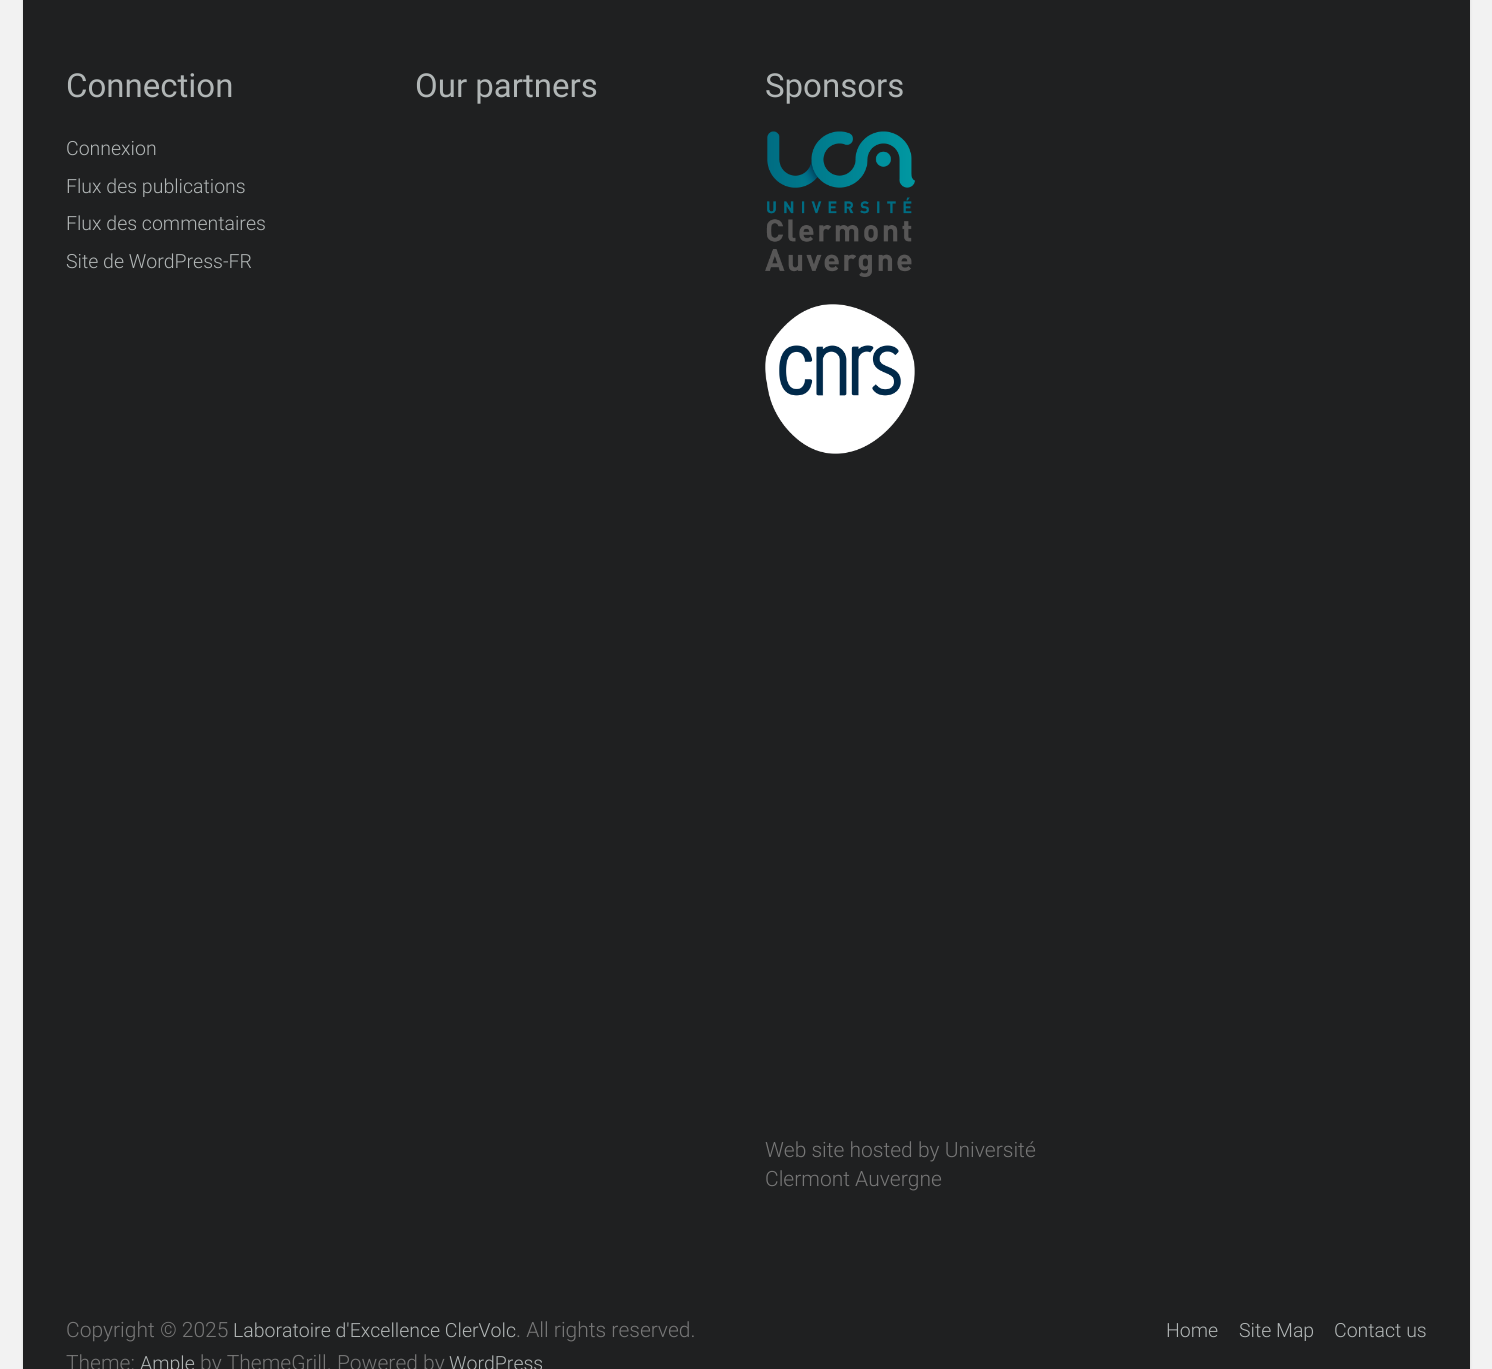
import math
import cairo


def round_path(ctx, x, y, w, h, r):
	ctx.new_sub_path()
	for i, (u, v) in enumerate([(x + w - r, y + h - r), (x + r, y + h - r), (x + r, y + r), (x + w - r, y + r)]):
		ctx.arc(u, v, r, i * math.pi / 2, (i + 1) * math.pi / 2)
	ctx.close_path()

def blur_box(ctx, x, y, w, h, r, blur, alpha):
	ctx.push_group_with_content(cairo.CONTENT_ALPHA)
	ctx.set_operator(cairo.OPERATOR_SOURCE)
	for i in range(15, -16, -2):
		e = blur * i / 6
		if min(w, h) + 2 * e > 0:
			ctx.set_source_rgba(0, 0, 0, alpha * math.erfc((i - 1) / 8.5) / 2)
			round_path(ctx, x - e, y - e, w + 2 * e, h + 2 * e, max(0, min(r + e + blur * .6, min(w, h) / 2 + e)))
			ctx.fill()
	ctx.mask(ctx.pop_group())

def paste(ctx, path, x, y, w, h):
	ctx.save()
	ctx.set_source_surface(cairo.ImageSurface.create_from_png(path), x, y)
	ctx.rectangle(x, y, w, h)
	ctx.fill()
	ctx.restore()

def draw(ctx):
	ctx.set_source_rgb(0.949, 0.949, 0.949)
	ctx.paint()
	ctx.set_source_rgb(0, 0, 0)
	blur_box(ctx, 23, -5, 1447, 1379, 0, 1.5, 0.1)
	ctx.set_source_rgb(0.122, 0.125, 0.129)
	ctx.rectangle(23, 0, 1447, 1369)
	ctx.fill()
	ctx.select_font_face('Roboto')
	ctx.set_font_size(33)
	ctx.set_source_rgb(0.694, 0.714, 0.714)
	ctx.move_to(66, 97)
	ctx.show_text('Connection')
	ctx.select_font_face('Roboto Light')
	ctx.set_font_size(19.5)
	for x, y, s in [
		(66, 155, 'Connexion'),
		(66, 193, 'Flux des publications'),
		(66, 230, 'Flux des commentaires'),
		(66, 268, 'Site de WordPress-FR'),
	]:
		ctx.move_to(x, y)
		ctx.show_text(s)
	ctx.select_font_face('Roboto')
	ctx.set_font_size(33)
	ctx.move_to(415, 97)
	ctx.show_text('Our partners')
	ctx.move_to(765, 97)
	ctx.show_text('Sponsors')
	paste(ctx, 'media/1.png', 765, 131, 150, 146)
	paste(ctx, 'media/2.png', 765, 304, 150, 150)
	ctx.select_font_face('Roboto Light')
	ctx.set_font_size(21)
	ctx.set_source_rgb(0.467, 0.467, 0.467)
	for x, y, s in [
		(765, 1157, 'Web site hosted by Université'),
		(765, 1186, 'Clermont Auvergne'),
		(66, 1337, 'Copyright © 2025'),
	]:
		ctx.move_to(x, y)
		ctx.show_text(s)
	ctx.set_font_size(19.5)
	ctx.set_source_rgb(0.694, 0.714, 0.714)
	ctx.move_to(233, 1337)
	ctx.show_text('Laboratoire d\'Excellence ClerVolc')
	ctx.set_font_size(21)
	ctx.set_source_rgb(0.467, 0.467, 0.467)
	ctx.move_to(516, 1337)
	ctx.show_text('. All rights reserved.')
	ctx.move_to(66, 1370)
	ctx.show_text('Theme:')
	ctx.set_font_size(19.5)
	ctx.set_source_rgb(0.694, 0.714, 0.714)
	ctx.move_to(140, 1370)
	ctx.show_text('Ample')
	ctx.set_font_size(21)
	ctx.set_source_rgb(0.467, 0.467, 0.467)
	ctx.move_to(200, 1370)
	ctx.show_text('by ThemeGrill. Powered by')
	ctx.set_font_size(19.5)
	ctx.set_source_rgb(0.694, 0.714, 0.714)
	for x, y, s in [
		(449, 1370, 'WordPress'),
		(1166, 1337, 'Home'),
		(1239, 1337, 'Site Map'),
		(1334, 1337, 'Contact us'),
	]:
		ctx.move_to(x, y)
		ctx.show_text(s)


surface = cairo.ImageSurface(cairo.FORMAT_RGB24, 1492, 1369)
ctx = cairo.Context(surface)
options = cairo.FontOptions()
options.set_hint_metrics(cairo.HINT_METRICS_OFF)
options.set_hint_style(cairo.HINT_STYLE_NONE)
ctx.set_font_options(options)
ctx.set_miter_limit(4)
draw(ctx)
surface.write_to_png('image.png')
